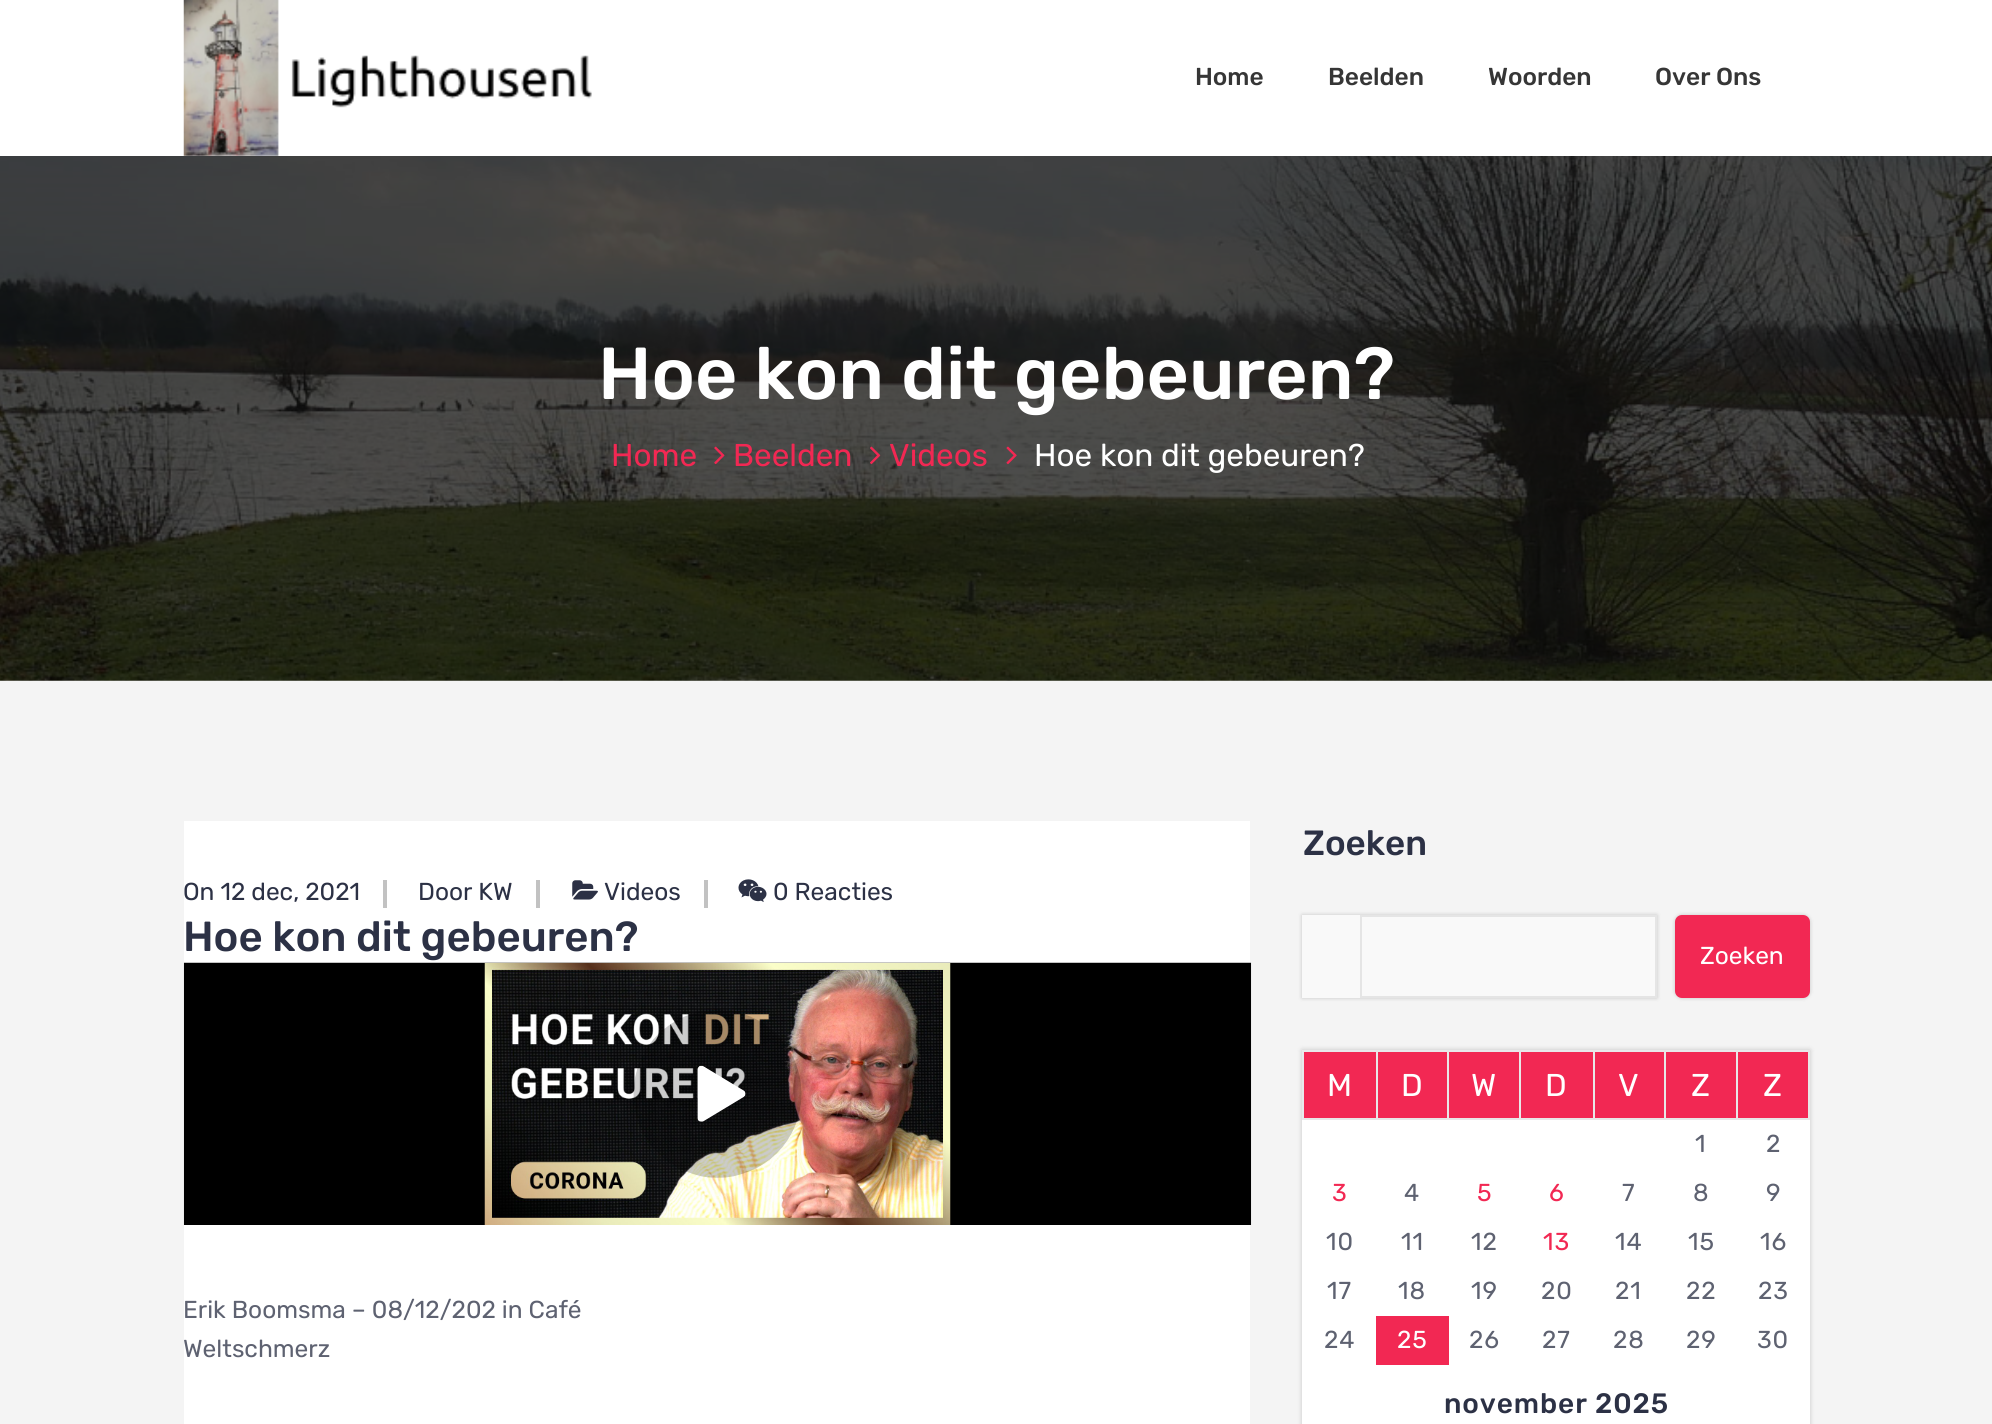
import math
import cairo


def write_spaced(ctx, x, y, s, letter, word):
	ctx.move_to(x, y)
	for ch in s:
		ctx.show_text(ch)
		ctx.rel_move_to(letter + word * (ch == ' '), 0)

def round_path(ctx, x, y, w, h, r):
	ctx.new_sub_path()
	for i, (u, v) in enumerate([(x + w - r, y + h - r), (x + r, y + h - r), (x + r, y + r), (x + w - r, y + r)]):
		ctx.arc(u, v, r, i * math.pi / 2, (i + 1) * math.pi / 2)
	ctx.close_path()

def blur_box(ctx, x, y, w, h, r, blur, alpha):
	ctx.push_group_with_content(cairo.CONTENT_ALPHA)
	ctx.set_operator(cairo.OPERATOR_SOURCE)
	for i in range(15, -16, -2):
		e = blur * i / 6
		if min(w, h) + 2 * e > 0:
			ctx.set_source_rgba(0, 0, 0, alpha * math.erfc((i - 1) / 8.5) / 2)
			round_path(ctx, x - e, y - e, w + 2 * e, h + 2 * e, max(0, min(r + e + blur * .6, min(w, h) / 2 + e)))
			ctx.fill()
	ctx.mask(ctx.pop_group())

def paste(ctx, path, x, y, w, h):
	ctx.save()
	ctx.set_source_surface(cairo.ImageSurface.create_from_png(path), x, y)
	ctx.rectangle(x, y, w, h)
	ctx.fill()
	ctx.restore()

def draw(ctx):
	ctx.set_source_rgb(0.957, 0.957, 0.957)
	ctx.paint()
	ctx.set_source_rgb(1, 1, 1)
	ctx.rectangle(0, 0, 1992, 156)
	ctx.fill()
	paste(ctx, 'media/1.png', 183, 0, 409, 156)
	ctx.select_font_face('Rubik Medium')
	ctx.set_font_size(24.5)
	ctx.set_source_rgb(0.212, 0.212, 0.212)
	for x, y, s in [
		(1195, 85, 'Home'),
		(1328, 85, 'Beelden'),
		(1488, 85, 'Woorden'),
		(1655, 85, 'Over Ons'),
	]:
		ctx.move_to(x, y)
		ctx.show_text(s)
	paste(ctx, 'media/2.png', 0, 156, 1992, 525)
	ctx.set_font_size(73.5)
	ctx.set_source_rgb(1, 1, 1)
	ctx.move_to(598, 399)
	ctx.show_text('Hoe kon dit gebeuren?')
	ctx.select_font_face('Rubik')
	ctx.set_font_size(31.5)
	ctx.set_source_rgb(0.949, 0.157, 0.325)
	ctx.move_to(611, 466)
	ctx.show_text('Home')
	paste(ctx, 'media/3.png', 714, 446, 11, 19)
	ctx.move_to(733, 466)
	ctx.show_text('Beelden')
	paste(ctx, 'media/4.png', 870, 446, 11, 19)
	ctx.move_to(889, 466)
	ctx.show_text('Videos')
	paste(ctx, 'media/5.png', 1006, 446, 11, 19)
	ctx.set_source_rgb(1, 1, 1)
	ctx.move_to(1034, 466)
	ctx.show_text('Hoe kon dit gebeuren?')
	ctx.rectangle(184, 821, 1066, 603)
	ctx.fill()
	ctx.set_font_size(24.5)
	ctx.set_source_rgb(0.173, 0.192, 0.271)
	ctx.move_to(183, 900)
	ctx.show_text('On 12 dec, 2021')
	ctx.set_source_rgb(0.761, 0.761, 0.761)
	ctx.rectangle(383, 880, 4, 28)
	ctx.fill()
	ctx.set_source_rgb(0.173, 0.192, 0.271)
	ctx.move_to(418, 900)
	ctx.show_text('Door KW')
	ctx.set_source_rgb(0.761, 0.761, 0.761)
	ctx.rectangle(536, 880, 4, 28)
	ctx.fill()
	paste(ctx, 'media/6.png', 572, 880, 26, 20)
	ctx.set_source_rgb(0.173, 0.192, 0.271)
	ctx.move_to(604, 900)
	ctx.show_text('Videos')
	ctx.set_source_rgb(0.761, 0.761, 0.761)
	ctx.rectangle(704, 880, 4, 28)
	ctx.fill()
	paste(ctx, 'media/7.png', 738, 879, 29, 23)
	ctx.set_source_rgb(0.173, 0.192, 0.271)
	ctx.move_to(773, 900)
	ctx.show_text('0 Reacties')
	ctx.select_font_face('Rubik Medium')
	ctx.set_font_size(42)
	ctx.move_to(183, 951)
	ctx.show_text('Hoe kon dit gebeuren?')
	paste(ctx, 'media/8.png', 183, 962, 1069, 263)
	ctx.select_font_face('Rubik')
	ctx.set_font_size(24.5)
	ctx.set_source_rgb(0.369, 0.384, 0.443)
	ctx.move_to(183, 1318)
	ctx.show_text('Erik Boomsma – 08/12/202 in Café')
	ctx.move_to(183, 1357)
	ctx.show_text('Weltschmerz')
	ctx.select_font_face('Rubik Medium')
	ctx.set_font_size(35)
	ctx.set_source_rgb(0.173, 0.192, 0.271)
	ctx.move_to(1303, 855)
	ctx.show_text('Zoeken')
	ctx.set_source_rgb(0.027, 0.027, 0.024)
	blur_box(ctx, 1302, 915, 355, 83, 0, 2, 0.2)
	ctx.set_source_rgb(0.976, 0.976, 0.976)
	ctx.rectangle(1302, 915, 353, 83)
	ctx.fill()
	ctx.rectangle(1361, 916, 295, 81)
	ctx.set_source_rgb(0.898, 0.898, 0.898)
	ctx.stroke()
	ctx.set_source_rgb(0.027, 0.027, 0.024)
	blur_box(ctx, 1675, 915, 135, 83, 7, 2, 0.2)
	ctx.set_source_rgb(0.949, 0.157, 0.325)
	round_path(ctx, 1675, 915, 135, 83, 7)
	ctx.fill()
	ctx.select_font_face('Rubik')
	ctx.set_font_size(24.5)
	ctx.set_source_rgb(1, 1, 1)
	ctx.move_to(1700, 964)
	ctx.show_text('Zoeken')
	ctx.set_source_rgb(0, 0, 0)
	blur_box(ctx, 1302, 1050, 508, 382, 0, 2.5, 0.2)
	ctx.set_source_rgb(1, 1, 1)
	ctx.rectangle(1302, 1120, 508, 304)
	ctx.fill()
	ctx.set_source_rgb(0.949, 0.157, 0.325)
	ctx.rectangle(1304, 1052, 504, 66)
	ctx.fill()
	ctx.set_source_rgb(0.914, 0.914, 0.918)
	ctx.rectangle(1302, 1050, 508, 2)
	ctx.fill()
	ctx.set_source_rgb(0.91, 0.906, 0.906)
	ctx.rectangle(1808, 1050, 2, 70)
	ctx.rectangle(1736, 1118, 74, 2)
	ctx.rectangle(1736, 1050, 2, 70)
	ctx.rectangle(1664, 1118, 74, 2)
	ctx.rectangle(1664, 1050, 2, 70)
	ctx.rectangle(1593, 1118, 73, 2)
	ctx.rectangle(1593, 1050, 2, 70)
	ctx.rectangle(1519, 1118, 75, 2)
	ctx.rectangle(1519, 1050, 2, 70)
	ctx.rectangle(1447, 1118, 74, 2)
	ctx.rectangle(1447, 1050, 2, 70)
	ctx.rectangle(1376, 1118, 73, 2)
	ctx.rectangle(1376, 1050, 2, 70)
	ctx.rectangle(1302, 1118, 75, 2)
	ctx.fill()
	ctx.set_source_rgb(0.914, 0.914, 0.918)
	ctx.rectangle(1302, 1050, 2, 70)
	ctx.fill()
	ctx.set_font_size(31.5)
	ctx.set_source_rgb(1, 1, 1)
	for x, y, s in [
		(1327, 1096, 'M'),
		(1401, 1096, 'D'),
		(1471, 1096, 'W'),
		(1545, 1096, 'D'),
		(1618, 1096, 'V'),
		(1691, 1096, 'Z'),
		(1763, 1096, 'Z'),
	]:
		write_spaced(ctx, x, y, s, 0.9, 0)
	ctx.set_font_size(24.5)
	ctx.set_source_rgb(0.369, 0.384, 0.443)
	write_spaced(ctx, 1695, 1152, '1', 0.9, 0)
	write_spaced(ctx, 1766, 1152, '2', 0.9, 0)
	ctx.set_source_rgb(0.949, 0.157, 0.325)
	write_spaced(ctx, 1332, 1201, '3', 0.9, 0)
	ctx.set_source_rgb(0.369, 0.384, 0.443)
	write_spaced(ctx, 1404, 1201, '4', 0.9, 0)
	ctx.set_source_rgb(0.949, 0.157, 0.325)
	write_spaced(ctx, 1477, 1201, '5', 0.9, 0)
	write_spaced(ctx, 1549, 1201, '6', 0.9, 0)
	ctx.set_source_rgb(0.369, 0.384, 0.443)
	for x, y, s in [
		(1622, 1201, '7'),
		(1693, 1201, '8'),
		(1766, 1201, '9'),
		(1326, 1250, '10'),
		(1401, 1250, '11'),
		(1471, 1250, '12'),
	]:
		write_spaced(ctx, x, y, s, 0.9, 0)
	ctx.set_source_rgb(0.949, 0.157, 0.325)
	write_spaced(ctx, 1543, 1250, '13', 0.9, 0)
	ctx.set_source_rgb(0.369, 0.384, 0.443)
	for x, y, s in [
		(1615, 1250, '14'),
		(1688, 1250, '15'),
		(1760, 1250, '16'),
		(1327, 1299, '17'),
		(1398, 1299, '18'),
		(1471, 1299, '19'),
		(1541, 1299, '20'),
		(1615, 1299, '21'),
		(1686, 1299, '22'),
		(1758, 1299, '23'),
		(1324, 1348, '24'),
	]:
		write_spaced(ctx, x, y, s, 0.9, 0)
	ctx.set_source_rgb(0.949, 0.157, 0.325)
	ctx.rectangle(1376, 1316, 73, 49)
	ctx.fill()
	ctx.set_source_rgb(1, 1, 1)
	write_spaced(ctx, 1397, 1348, '25', 0.9, 0)
	ctx.set_source_rgb(0.369, 0.384, 0.443)
	for x, y, s in [
		(1469, 1348, '26'),
		(1542, 1348, '27'),
		(1613, 1348, '28'),
		(1686, 1348, '29'),
		(1757, 1348, '30'),
	]:
		write_spaced(ctx, x, y, s, 0.9, 0)
	ctx.select_font_face('Rubik Medium')
	ctx.set_font_size(28)
	ctx.set_source_rgb(0.173, 0.192, 0.271)
	write_spaced(ctx, 1444, 1413, 'november 2025', 0.9, 0)


surface = cairo.ImageSurface(cairo.FORMAT_RGB24, 1992, 1424)
ctx = cairo.Context(surface)
options = cairo.FontOptions()
options.set_hint_metrics(cairo.HINT_METRICS_OFF)
options.set_hint_style(cairo.HINT_STYLE_NONE)
ctx.set_font_options(options)
ctx.set_miter_limit(4)
draw(ctx)
surface.write_to_png('image.png')
